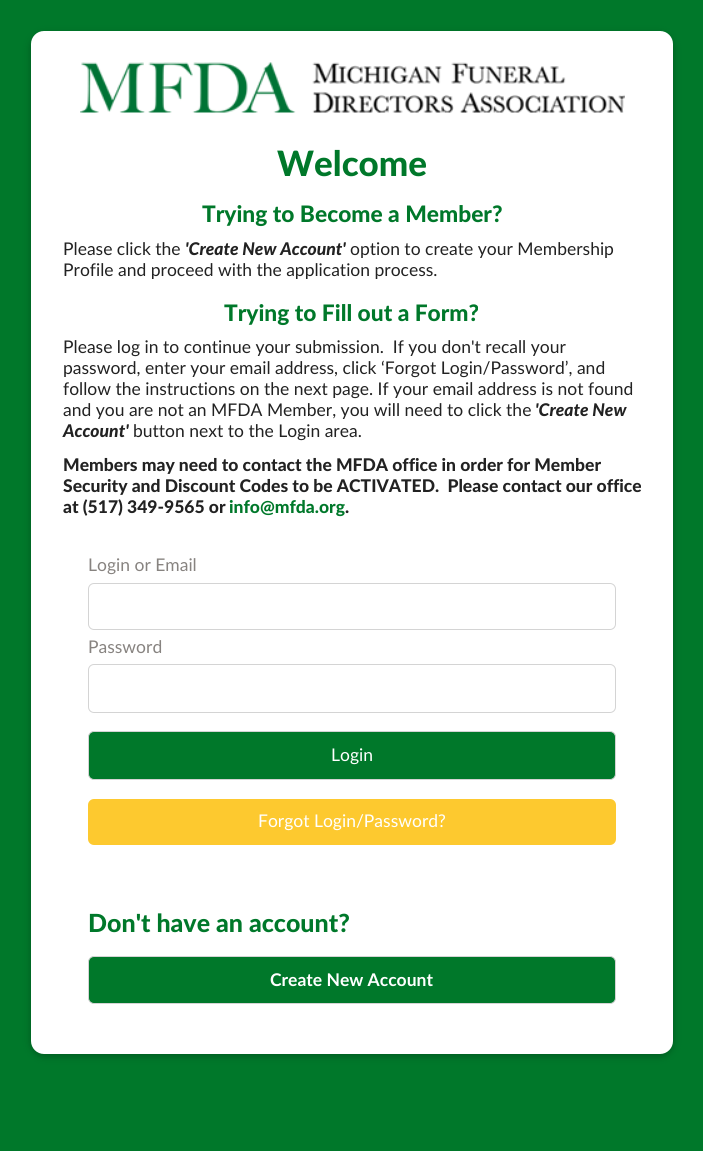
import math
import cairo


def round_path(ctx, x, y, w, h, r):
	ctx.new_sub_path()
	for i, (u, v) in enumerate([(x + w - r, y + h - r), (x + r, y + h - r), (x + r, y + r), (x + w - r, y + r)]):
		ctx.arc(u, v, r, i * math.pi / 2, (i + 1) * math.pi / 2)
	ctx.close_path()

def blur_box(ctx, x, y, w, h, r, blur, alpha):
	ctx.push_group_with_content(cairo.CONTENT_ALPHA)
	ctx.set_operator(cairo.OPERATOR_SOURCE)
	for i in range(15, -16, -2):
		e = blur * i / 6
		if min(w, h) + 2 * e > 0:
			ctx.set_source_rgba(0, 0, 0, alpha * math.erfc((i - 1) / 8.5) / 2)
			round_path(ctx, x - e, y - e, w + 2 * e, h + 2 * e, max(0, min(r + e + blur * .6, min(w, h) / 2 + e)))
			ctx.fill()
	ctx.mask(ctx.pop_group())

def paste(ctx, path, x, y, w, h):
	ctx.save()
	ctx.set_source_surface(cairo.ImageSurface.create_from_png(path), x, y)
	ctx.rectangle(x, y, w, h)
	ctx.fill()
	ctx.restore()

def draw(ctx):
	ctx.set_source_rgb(0, 0.471, 0.165)
	ctx.paint()
	ctx.set_source_rgb(0, 0, 0)
	blur_box(ctx, 31, 34, 642, 1022, 13, 6, 0.12)
	blur_box(ctx, 31, 34, 642, 1022, 13, 3, 0.16)
	ctx.set_source_rgb(1, 1, 1)
	round_path(ctx, 31, 31, 642, 1023, 13)
	ctx.fill()
	paste(ctx, 'media/1.png', 80, 62, 545, 51)
	ctx.select_font_face('Lato Black')
	ctx.set_font_size(35)
	ctx.set_source_rgb(0, 0.471, 0.165)
	ctx.move_to(277, 176)
	ctx.show_text('Welcome')
	ctx.set_font_size(22.75)
	ctx.move_to(202, 222)
	ctx.show_text('Trying to Become a Member?')
	ctx.select_font_face('Lato')
	ctx.set_font_size(17.5)
	ctx.set_source_rgb(0.133, 0.133, 0.133)
	ctx.move_to(63, 255)
	ctx.show_text('Please click the')
	ctx.select_font_face('Lato Black', cairo.FONT_SLANT_ITALIC)
	ctx.move_to(185, 255)
	ctx.show_text('\'Create New Account\'')
	ctx.select_font_face('Lato')
	ctx.move_to(350, 255)
	ctx.show_text('option to create your Membership')
	ctx.move_to(63, 276)
	ctx.show_text('Profile and proceed with the application process.')
	ctx.select_font_face('Lato Black')
	ctx.set_font_size(22.75)
	ctx.set_source_rgb(0, 0.471, 0.165)
	ctx.move_to(224, 321)
	ctx.show_text('Trying to Fill out a Form?')
	ctx.select_font_face('Lato')
	ctx.set_font_size(17.5)
	ctx.set_source_rgb(0.133, 0.133, 0.133)
	for x, y, s in [
		(63, 353, 'Please log in to continue your submission.  If you don\'t recall your'),
		(63, 374, 'password, enter your email address, click ‘Forgot Login/Password’, and'),
		(63, 395, 'follow the instructions on the next page. If your email address is not found'),
		(63, 416, 'and you are not an MFDA Member, you will need to click the'),
	]:
		ctx.move_to(x, y)
		ctx.show_text(s)
	ctx.select_font_face('Lato Black', cairo.FONT_SLANT_ITALIC)
	ctx.move_to(535, 416)
	ctx.show_text('\'Create New')
	ctx.move_to(63, 437)
	ctx.show_text('Account\'')
	ctx.select_font_face('Lato')
	ctx.move_to(133, 437)
	ctx.show_text('button next to the Login area.')
	ctx.select_font_face('Lato Black')
	for x, y, s in [
		(63, 471, 'Members may need to contact the MFDA office in order for Member'),
		(63, 492, 'Security and Discount Codes to be ACTIVATED.  Please contact our office'),
		(63, 513, 'at (517) 349-9565 or'),
	]:
		ctx.move_to(x, y)
		ctx.show_text(s)
	ctx.set_source_rgb(0, 0.471, 0.165)
	ctx.move_to(229, 513)
	ctx.show_text('info@mfda.org')
	ctx.set_source_rgb(0.133, 0.133, 0.133)
	ctx.move_to(345, 513)
	ctx.show_text('.')
	ctx.select_font_face('Lato')
	ctx.set_source_rgb(0.529, 0.514, 0.502)
	ctx.move_to(88, 571)
	ctx.show_text('Login or Email')
	round_path(ctx, 88.5, 583.5, 527, 46, 5.5)
	ctx.set_source_rgb(0.831, 0.831, 0.831)
	ctx.set_line_width(1)
	ctx.stroke()
	ctx.set_source_rgb(0.529, 0.514, 0.502)
	ctx.move_to(88, 653)
	ctx.show_text('Password')
	round_path(ctx, 88.5, 664.5, 527, 48, 5.5)
	ctx.set_source_rgb(0.831, 0.831, 0.831)
	ctx.stroke()
	ctx.set_source_rgb(0, 0.471, 0.165)
	round_path(ctx, 88.5, 731.5, 527, 48, 5.5)
	ctx.fill_preserve()
	ctx.set_source_rgb(0.831, 0.831, 0.831)
	ctx.stroke()
	ctx.set_source_rgb(1, 1, 1)
	ctx.move_to(331, 761)
	ctx.show_text('Login')
	ctx.set_source_rgb(0.992, 0.788, 0.184)
	round_path(ctx, 88, 799, 528, 46, 6)
	ctx.fill()
	ctx.set_source_rgb(1, 1, 1)
	ctx.move_to(258, 827)
	ctx.show_text('Forgot Login/Password?')
	ctx.select_font_face('Lato Black')
	ctx.set_font_size(25)
	ctx.set_source_rgb(0, 0.471, 0.165)
	ctx.move_to(88, 932)
	ctx.show_text('Don\'t have an account?')
	round_path(ctx, 88.5, 956.5, 527, 47, 5.5)
	ctx.fill_preserve()
	ctx.set_source_rgb(0.831, 0.831, 0.831)
	ctx.stroke()
	ctx.select_font_face('Lato', cairo.FONT_SLANT_NORMAL, cairo.FONT_WEIGHT_BOLD)
	ctx.set_font_size(17.5)
	ctx.set_source_rgb(1, 1, 1)
	ctx.move_to(270, 986)
	ctx.show_text('Create New Account')


surface = cairo.ImageSurface(cairo.FORMAT_RGB24, 703, 1151)
ctx = cairo.Context(surface)
options = cairo.FontOptions()
options.set_hint_metrics(cairo.HINT_METRICS_OFF)
options.set_hint_style(cairo.HINT_STYLE_NONE)
ctx.set_font_options(options)
ctx.set_miter_limit(4)
draw(ctx)
surface.write_to_png('image.png')
